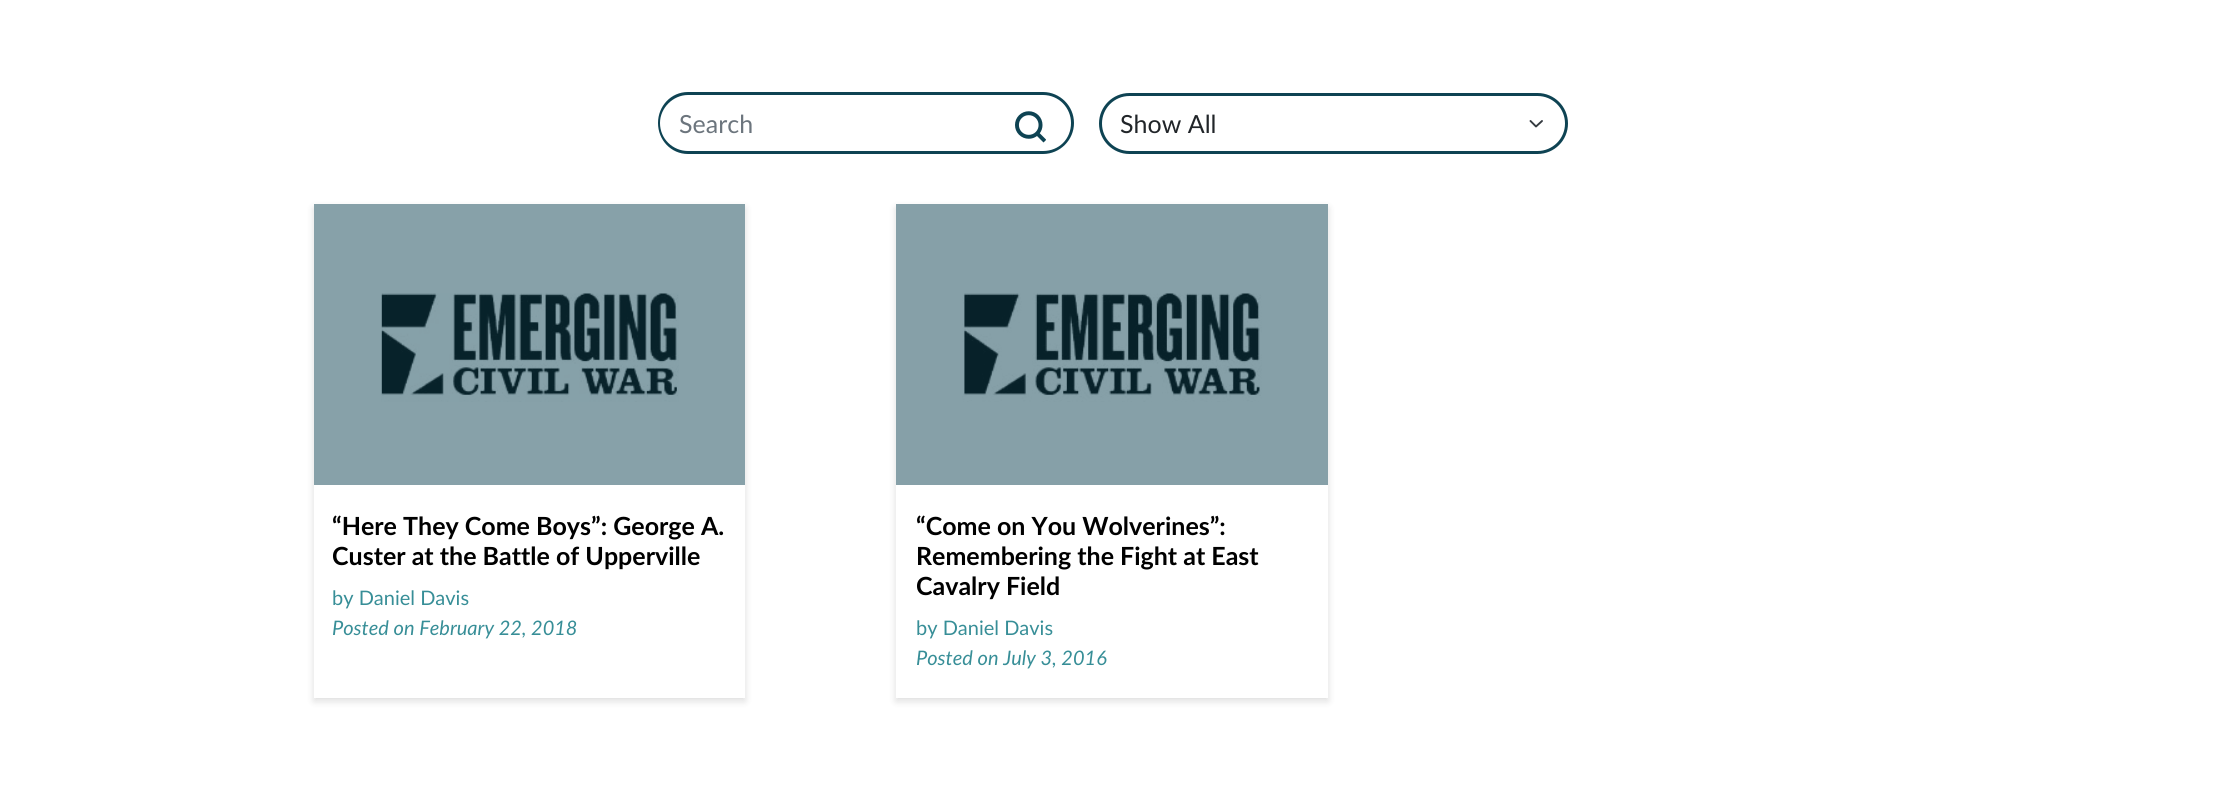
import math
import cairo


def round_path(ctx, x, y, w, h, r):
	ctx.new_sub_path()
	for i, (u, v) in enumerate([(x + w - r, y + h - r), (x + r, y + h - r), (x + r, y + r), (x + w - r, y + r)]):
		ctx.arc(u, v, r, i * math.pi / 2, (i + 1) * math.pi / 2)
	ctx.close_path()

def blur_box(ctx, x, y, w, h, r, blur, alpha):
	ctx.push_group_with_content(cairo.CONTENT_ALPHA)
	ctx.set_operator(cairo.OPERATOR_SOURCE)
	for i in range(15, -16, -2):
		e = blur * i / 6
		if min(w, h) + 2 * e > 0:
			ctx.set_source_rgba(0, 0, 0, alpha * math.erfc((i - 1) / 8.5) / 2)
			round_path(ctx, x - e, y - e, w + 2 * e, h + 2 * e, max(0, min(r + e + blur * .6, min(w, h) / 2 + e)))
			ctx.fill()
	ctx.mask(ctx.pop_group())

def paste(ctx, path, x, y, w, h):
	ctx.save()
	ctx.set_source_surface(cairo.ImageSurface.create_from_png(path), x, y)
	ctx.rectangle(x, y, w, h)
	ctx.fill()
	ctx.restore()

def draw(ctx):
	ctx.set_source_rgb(1, 1, 1)
	ctx.paint()
	ctx.set_source_rgb(0.055, 0.263, 0.325)
	ctx.set_fill_rule(cairo.FILL_RULE_EVEN_ODD)
	ctx.new_path()
	ctx.move_to(1008, 92)
	ctx.line_to(1043, 92)
	ctx.curve_to(1060, 92, 1074, 106, 1074, 123)
	ctx.curve_to(1074, 140, 1060, 154, 1043, 154)
	ctx.line_to(1008, 154)
	ctx.close_path()
	ctx.move_to(1008, 95)
	ctx.line_to(1043, 95)
	ctx.curve_to(1059, 95, 1071, 108, 1071, 123)
	ctx.curve_to(1071, 139, 1059, 151, 1043, 151)
	ctx.line_to(1008, 151)
	ctx.close_path()
	ctx.fill()
	ctx.new_path()
	ctx.move_to(688, 92)
	ctx.line_to(1009, 92)
	ctx.line_to(1009, 154)
	ctx.line_to(688, 154)
	ctx.curve_to(671, 154, 658, 140, 658, 123)
	ctx.curve_to(658, 106, 671, 92, 688, 92)
	ctx.close_path()
	ctx.move_to(688, 95)
	ctx.line_to(1009, 95)
	ctx.line_to(1009, 151)
	ctx.line_to(688, 151)
	ctx.curve_to(673, 151, 660, 139, 660, 123)
	ctx.curve_to(660, 108, 673, 95, 688, 95)
	ctx.close_path()
	ctx.fill()
	ctx.select_font_face('Lato')
	ctx.set_font_size(25)
	ctx.set_source_rgb(0.424, 0.459, 0.49)
	ctx.move_to(679, 133)
	ctx.show_text('Search')
	paste(ctx, 'media/1.png', 1015, 111, 31, 32)
	ctx.new_path()
	ctx.move_to(1530.5, 121)
	ctx.line_to(1536, 126.5)
	ctx.line_to(1542, 121)
	ctx.set_source_rgb(0.204, 0.227, 0.251)
	ctx.set_line_width(1.9)
	ctx.set_line_cap(cairo.LINE_CAP_ROUND)
	ctx.set_line_join(cairo.LINE_JOIN_ROUND)
	ctx.stroke()
	round_path(ctx, 1100.5, 94.5, 466, 58, 29)
	ctx.set_source_rgb(0.055, 0.263, 0.325)
	ctx.set_line_width(3)
	ctx.set_line_cap(cairo.LINE_CAP_BUTT)
	ctx.set_line_join(cairo.LINE_JOIN_MITER)
	ctx.stroke()
	ctx.set_source_rgb(0.129, 0.145, 0.161)
	ctx.move_to(1120, 133)
	ctx.show_text('Show All')
	ctx.set_source_rgb(0.145, 0.145, 0.145)
	blur_box(ctx, 314, 208, 431, 493, 0, 4, 0.16)
	ctx.set_source_rgb(1, 1, 1)
	ctx.rectangle(314, 485, 431, 213)
	ctx.fill()
	ctx.set_source_rgb(0.529, 0.631, 0.663)
	ctx.rectangle(314, 204, 431, 281)
	ctx.fill()
	paste(ctx, 'media/2.png', 381, 293, 298, 109)
	ctx.select_font_face('Lato', cairo.FONT_SLANT_NORMAL, cairo.FONT_WEIGHT_BOLD)
	ctx.set_source_rgb(0, 0, 0)
	ctx.move_to(332, 535)
	ctx.show_text('“Here They Come Boys”: George A.')
	ctx.move_to(332, 565)
	ctx.show_text('Custer at the Battle of Upperville')
	ctx.select_font_face('Lato')
	ctx.set_font_size(20)
	ctx.set_source_rgb(0.216, 0.557, 0.592)
	ctx.move_to(332, 605)
	ctx.show_text('by Daniel Davis')
	ctx.select_font_face('Lato', cairo.FONT_SLANT_ITALIC)
	ctx.move_to(332, 635)
	ctx.show_text('Posted on February 22, 2018')
	ctx.set_source_rgb(0.145, 0.145, 0.145)
	blur_box(ctx, 896, 208, 432, 493, 0, 4, 0.16)
	ctx.set_source_rgb(1, 1, 1)
	ctx.rectangle(896, 204, 432, 494)
	ctx.fill()
	paste(ctx, 'media/3.png', 962, 293, 300, 109)
	ctx.set_source_rgba(0.055, 0.263, 0.325, 0.5)
	ctx.rectangle(896, 204, 432, 281)
	ctx.fill()
	ctx.select_font_face('Lato', cairo.FONT_SLANT_NORMAL, cairo.FONT_WEIGHT_BOLD)
	ctx.set_font_size(25)
	ctx.set_source_rgb(0, 0, 0)
	for x, y, s in [
		(916, 535, '“Come on You Wolverines”:'),
		(916, 565, 'Remembering the Fight at East'),
		(916, 595, 'Cavalry Field'),
	]:
		ctx.move_to(x, y)
		ctx.show_text(s)
	ctx.select_font_face('Lato')
	ctx.set_font_size(20)
	ctx.set_source_rgb(0.216, 0.557, 0.592)
	ctx.move_to(916, 635)
	ctx.show_text('by Daniel Davis')
	ctx.select_font_face('Lato', cairo.FONT_SLANT_ITALIC)
	ctx.move_to(916, 665)
	ctx.show_text('Posted on July 3, 2016')


surface = cairo.ImageSurface(cairo.FORMAT_RGB24, 2224, 800)
ctx = cairo.Context(surface)
options = cairo.FontOptions()
options.set_hint_metrics(cairo.HINT_METRICS_OFF)
options.set_hint_style(cairo.HINT_STYLE_NONE)
ctx.set_font_options(options)
ctx.set_miter_limit(4)
draw(ctx)
surface.write_to_png('image.png')
